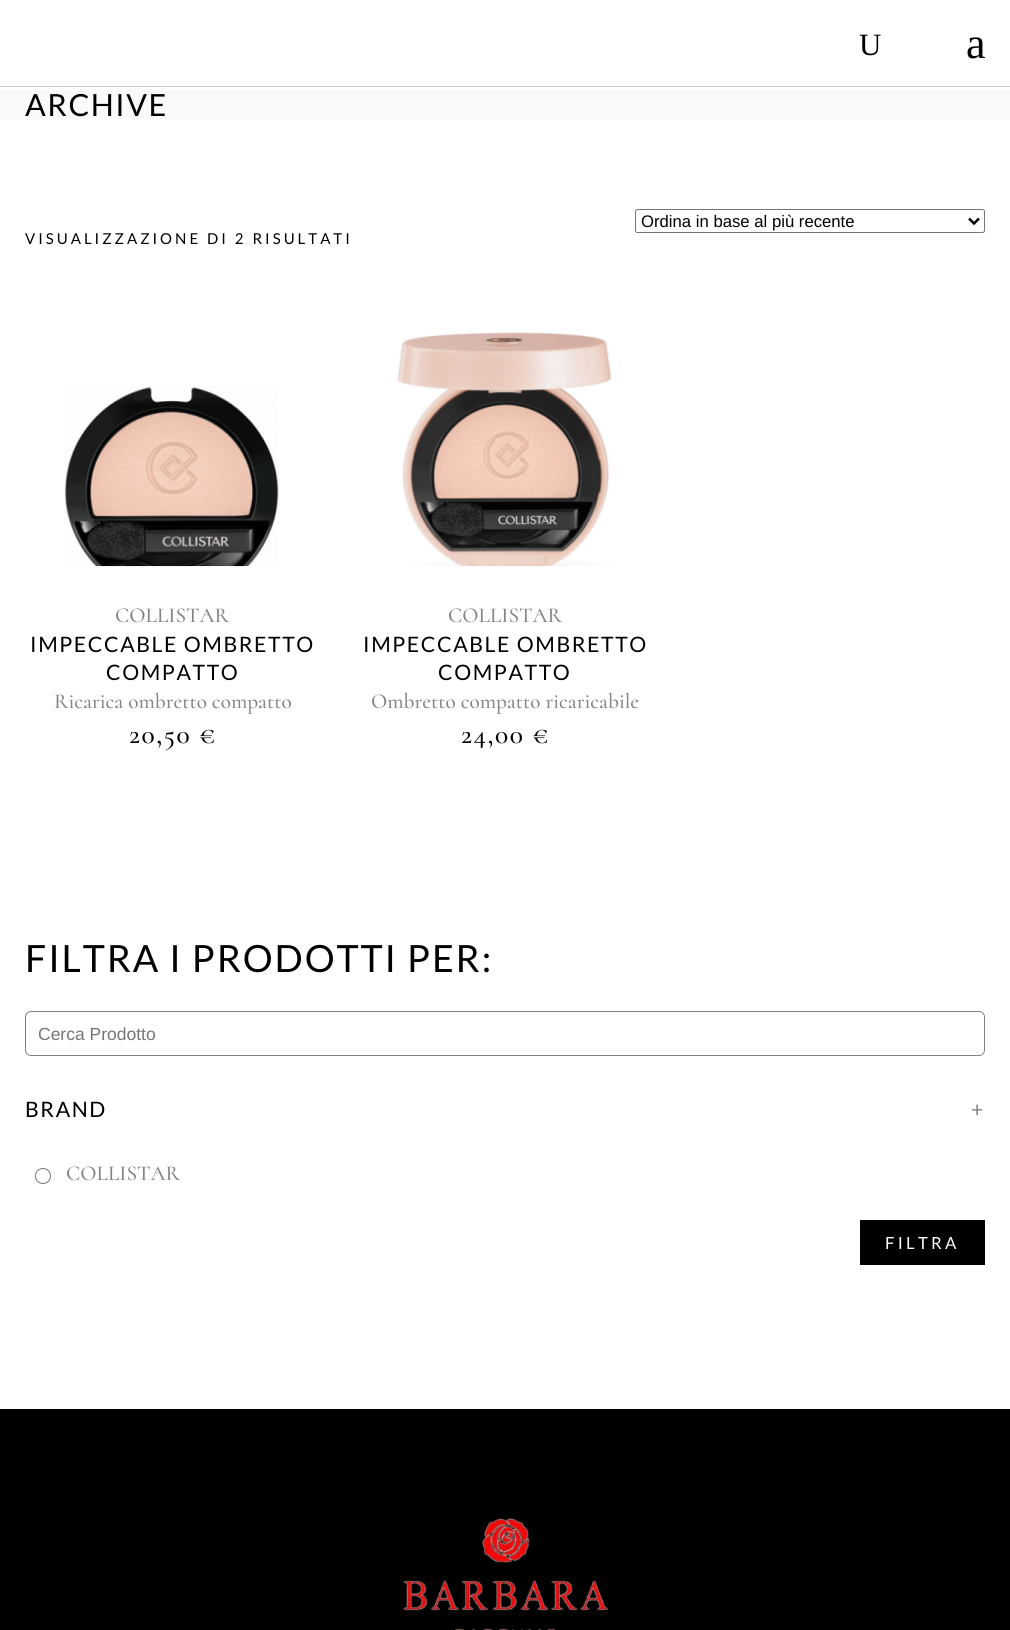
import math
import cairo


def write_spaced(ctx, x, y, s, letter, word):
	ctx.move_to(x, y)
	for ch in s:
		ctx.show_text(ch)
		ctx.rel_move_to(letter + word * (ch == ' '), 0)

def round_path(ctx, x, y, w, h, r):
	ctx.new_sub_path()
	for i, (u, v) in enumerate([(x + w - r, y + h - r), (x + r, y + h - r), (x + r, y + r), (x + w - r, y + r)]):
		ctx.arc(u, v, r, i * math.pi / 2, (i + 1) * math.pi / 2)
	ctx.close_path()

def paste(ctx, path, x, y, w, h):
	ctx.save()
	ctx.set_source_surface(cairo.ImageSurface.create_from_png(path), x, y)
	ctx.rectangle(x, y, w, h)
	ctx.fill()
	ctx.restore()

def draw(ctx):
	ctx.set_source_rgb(1, 1, 1)
	ctx.paint()
	ctx.set_source_rgb(0.796, 0.796, 0.796)
	ctx.rectangle(0, 86, 1010, 1)
	ctx.fill()
	ctx.select_font_face('Liberation Serif')
	ctx.set_font_size(31)
	ctx.set_source_rgb(0, 0, 0)
	ctx.move_to(859, 55)
	ctx.show_text('U')
	ctx.set_font_size(44)
	ctx.move_to(966, 58)
	ctx.show_text('a')
	ctx.set_source_rgb(0.984, 0.976, 0.976)
	ctx.rectangle(0, 90, 1010, 29)
	ctx.fill()
	ctx.select_font_face('Lato')
	ctx.set_font_size(30.5)
	ctx.set_source_rgb(0, 0, 0)
	write_spaced(ctx, 25, 116, 'ARCHIVE', 1.5, 0)
	round_path(ctx, 635.5, 209.5, 349, 23, 2)
	ctx.set_source_rgb(0.463, 0.463, 0.463)
	ctx.set_line_width(1)
	ctx.stroke()
	ctx.new_path()
	ctx.move_to(969, 218.5)
	ctx.line_to(974, 223.5)
	ctx.line_to(979, 218.5)
	ctx.set_source_rgb(0, 0, 0)
	ctx.set_line_width(2.5)
	ctx.stroke()
	ctx.select_font_face('Liberation Sans')
	ctx.set_font_size(16.7)
	ctx.move_to(641, 227)
	ctx.show_text('Ordina in base al più recente')
	ctx.select_font_face('Lato')
	ctx.set_font_size(15)
	write_spaced(ctx, 25, 244, 'VISUALIZZAZIONE DI 2 RISULTATI', 3, 0)
	paste(ctx, 'media/1.png', 64, 386, 215, 181)
	ctx.select_font_face('Cormorant Medium')
	ctx.set_font_size(21.25)
	ctx.set_source_rgb(0.514, 0.514, 0.514)
	ctx.move_to(115, 622)
	ctx.show_text('COLLISTAR')
	ctx.select_font_face('Lato')
	ctx.set_source_rgb(0, 0, 0)
	write_spaced(ctx, 30, 652, 'IMPECCABLE OMBRETTO', 1.6, 0)
	write_spaced(ctx, 106, 680, 'COMPATTO', 1.6, 0)
	ctx.select_font_face('Cormorant Medium')
	ctx.set_source_rgb(0.514, 0.514, 0.514)
	ctx.move_to(54, 708)
	ctx.show_text('Ricarica ombretto compatto')
	ctx.set_font_size(27.5)
	ctx.set_source_rgb(0, 0, 0)
	write_spaced(ctx, 129, 743, '20,50 €', 1.5, 0)
	paste(ctx, 'media/2.png', 397, 332, 215, 235)
	ctx.set_font_size(21.25)
	ctx.set_source_rgb(0.514, 0.514, 0.514)
	ctx.move_to(448, 622)
	ctx.show_text('COLLISTAR')
	ctx.select_font_face('Lato')
	ctx.set_source_rgb(0, 0, 0)
	write_spaced(ctx, 363, 652, 'IMPECCABLE OMBRETTO', 1.6, 0)
	write_spaced(ctx, 438, 680, 'COMPATTO', 1.6, 0)
	ctx.select_font_face('Cormorant Medium')
	ctx.set_source_rgb(0.514, 0.514, 0.514)
	ctx.move_to(371, 708)
	ctx.show_text('Ombretto compatto ricaricabile')
	ctx.set_font_size(27.5)
	ctx.set_source_rgb(0, 0, 0)
	write_spaced(ctx, 461, 743, '24,00 €', 1.5, 0)
	ctx.select_font_face('Lato')
	ctx.set_font_size(37.5)
	write_spaced(ctx, 25, 972, 'FILTRA I PRODOTTI PER:', 1.9, 0)
	round_path(ctx, 25.5, 1011.5, 959, 44, 5.5)
	ctx.set_source_rgb(0.502, 0.502, 0.502)
	ctx.set_line_width(1)
	ctx.stroke()
	ctx.select_font_face('Liberation Sans')
	ctx.set_font_size(17.5)
	ctx.set_source_rgb(0.459, 0.459, 0.459)
	ctx.move_to(38, 1040)
	ctx.show_text('Cerca Prodotto')
	ctx.select_font_face('Lato')
	ctx.set_font_size(21.25)
	ctx.set_source_rgb(0, 0, 0)
	write_spaced(ctx, 25, 1117, 'BRAND', 1.6, 0)
	ctx.set_source_rgb(0.514, 0.514, 0.514)
	write_spaced(ctx, 971, 1117, '+', 1.6, 0)
	ctx.new_path()
	ctx.arc(43, 1176, 7.5, 0, 2 * math.pi)
	ctx.set_source_rgb(0.463, 0.463, 0.463)
	ctx.stroke()
	ctx.select_font_face('Cormorant Medium')
	ctx.set_source_rgb(0.514, 0.514, 0.514)
	ctx.move_to(66, 1180)
	ctx.show_text('COLLISTAR')
	ctx.set_source_rgb(0, 0, 0)
	ctx.rectangle(860, 1220, 125, 45)
	ctx.fill()
	ctx.select_font_face('Lato')
	ctx.set_font_size(16.7)
	ctx.set_source_rgb(1, 1, 1)
	write_spaced(ctx, 885, 1249, 'FILTRA', 3.25, 0)
	ctx.set_source_rgb(0, 0, 0)
	ctx.rectangle(0, 1409, 1010, 221)
	ctx.fill()
	paste(ctx, 'media/3.png', 403, 1518, 206, 112)


surface = cairo.ImageSurface(cairo.FORMAT_RGB24, 1010, 1630)
ctx = cairo.Context(surface)
options = cairo.FontOptions()
options.set_hint_metrics(cairo.HINT_METRICS_OFF)
options.set_hint_style(cairo.HINT_STYLE_NONE)
ctx.set_font_options(options)
ctx.set_miter_limit(4)
draw(ctx)
surface.write_to_png('image.png')
